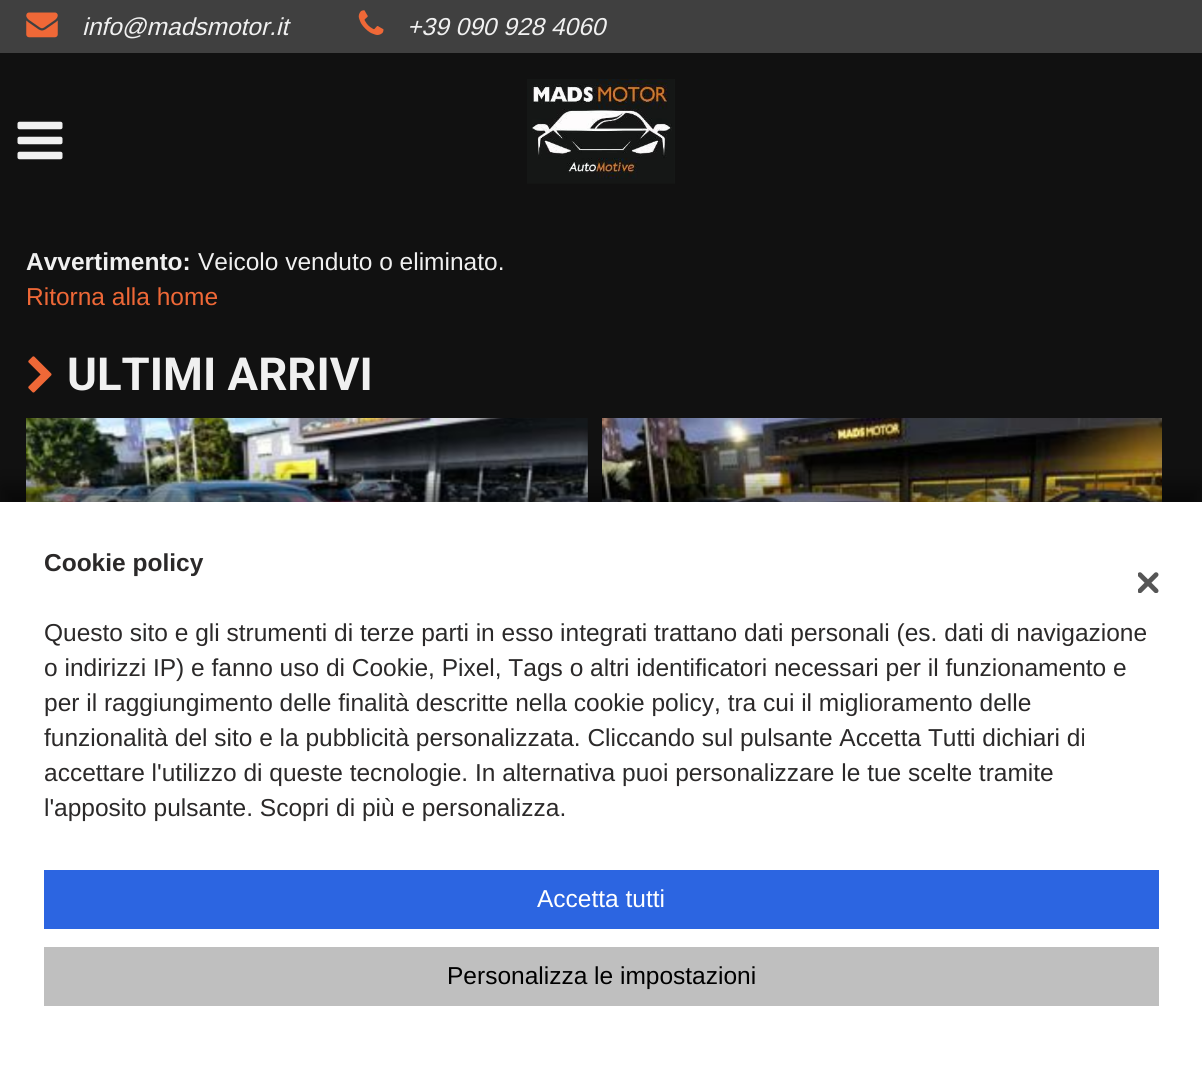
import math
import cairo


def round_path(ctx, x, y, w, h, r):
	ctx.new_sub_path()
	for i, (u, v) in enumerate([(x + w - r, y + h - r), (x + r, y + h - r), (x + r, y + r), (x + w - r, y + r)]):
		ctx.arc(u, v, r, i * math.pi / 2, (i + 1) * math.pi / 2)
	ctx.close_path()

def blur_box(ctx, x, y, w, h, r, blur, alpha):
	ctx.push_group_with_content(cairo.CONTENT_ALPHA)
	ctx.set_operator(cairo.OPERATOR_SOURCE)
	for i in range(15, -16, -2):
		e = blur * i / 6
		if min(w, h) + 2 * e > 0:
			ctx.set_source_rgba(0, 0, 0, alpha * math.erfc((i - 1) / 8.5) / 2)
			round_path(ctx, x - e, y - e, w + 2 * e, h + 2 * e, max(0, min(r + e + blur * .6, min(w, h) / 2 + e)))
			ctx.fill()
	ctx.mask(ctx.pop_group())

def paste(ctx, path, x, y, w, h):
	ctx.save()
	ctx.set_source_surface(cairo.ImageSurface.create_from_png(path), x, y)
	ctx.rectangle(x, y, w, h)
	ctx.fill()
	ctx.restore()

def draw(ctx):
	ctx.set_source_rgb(0.067, 0.067, 0.067)
	ctx.paint()
	ctx.set_source_rgb(0.251, 0.251, 0.251)
	ctx.rectangle(0, 0, 1202, 53)
	ctx.fill()
	paste(ctx, 'media/1.png', 26, 12, 32, 26)
	ctx.select_font_face('Arimo', cairo.FONT_SLANT_ITALIC)
	ctx.set_font_size(24.5)
	ctx.set_source_rgb(0.941, 0.941, 0.941)
	ctx.move_to(82, 35)
	ctx.show_text('info@madsmotor.it')
	paste(ctx, 'media/2.png', 358, 10, 26, 25)
	ctx.move_to(407, 35)
	ctx.show_text('+39 090 928 4060')
	paste(ctx, 'media/3.png', 17, 121, 46, 39)
	paste(ctx, 'media/4.png', 527, 79, 148, 105)
	ctx.select_font_face('Arimo', cairo.FONT_SLANT_NORMAL, cairo.FONT_WEIGHT_BOLD)
	ctx.move_to(26, 270)
	ctx.show_text('Avvertimento:')
	ctx.select_font_face('Arimo')
	ctx.move_to(198, 270)
	ctx.show_text('Veicolo venduto o eliminato.')
	ctx.set_source_rgb(0.937, 0.408, 0.216)
	ctx.move_to(26, 305)
	ctx.show_text('Ritorna alla home')
	paste(ctx, 'media/5.png', 28, 356, 24, 37)
	ctx.select_font_face('Roboto', cairo.FONT_SLANT_NORMAL, cairo.FONT_WEIGHT_BOLD)
	ctx.set_font_size(45.5)
	ctx.set_source_rgb(0.941, 0.941, 0.941)
	ctx.move_to(67, 390)
	ctx.show_text('ULTIMI ARRIVI')
	paste(ctx, 'media/6.png', 26, 418, 562, 84)
	paste(ctx, 'media/7.png', 602, 418, 560, 84)
	ctx.set_source_rgb(0, 0, 0)
	blur_box(ctx, 0, 485, 1202, 565, 0, 10.5, 0.5)
	ctx.set_source_rgb(1, 1, 1)
	ctx.rectangle(0, 502, 1202, 564)
	ctx.fill()
	ctx.select_font_face('Arimo', cairo.FONT_SLANT_NORMAL, cairo.FONT_WEIGHT_BOLD)
	ctx.set_font_size(24.5)
	ctx.set_source_rgb(0.169, 0.161, 0.161)
	ctx.move_to(44, 571)
	ctx.show_text('Cookie policy')
	ctx.select_font_face('Arimo')
	for x, y, s in [
		(44, 641, 'Questo sito e gli strumenti di terze parti in esso integrati trattano dati personali (es. dati di navigazione'),
		(44, 676, 'o indirizzi IP) e fanno uso di Cookie, Pixel, Tags o altri identificatori necessari per il funzionamento e'),
		(44, 711, 'per il raggiungimento delle finalità descritte nella cookie policy, tra cui il miglioramento delle'),
		(44, 746, 'funzionalità del sito e la pubblicità personalizzata. Cliccando sul pulsante Accetta Tutti dichiari di'),
		(44, 781, 'accettare l\'utilizzo di queste tecnologie. In alternativa puoi personalizzare le tue scelte tramite'),
		(44, 816, 'l\'apposito pulsante. Scopri di più e personalizza.'),
	]:
		ctx.move_to(x, y)
		ctx.show_text(s)
	paste(ctx, 'media/8.png', 1138, 572, 21, 21)
	ctx.set_source_rgb(0.173, 0.396, 0.882)
	ctx.rectangle(44, 870, 1115, 59)
	ctx.fill()
	ctx.set_source_rgb(1, 1, 1)
	ctx.move_to(537, 907)
	ctx.show_text('Accetta tutti')
	ctx.set_source_rgb(0.749, 0.749, 0.749)
	ctx.rectangle(44, 947, 1115, 59)
	ctx.fill()
	ctx.set_source_rgb(0, 0, 0)
	ctx.move_to(447, 984)
	ctx.show_text('Personalizza le impostazioni')


surface = cairo.ImageSurface(cairo.FORMAT_RGB24, 1202, 1066)
ctx = cairo.Context(surface)
options = cairo.FontOptions()
options.set_hint_metrics(cairo.HINT_METRICS_OFF)
options.set_hint_style(cairo.HINT_STYLE_NONE)
ctx.set_font_options(options)
ctx.set_miter_limit(4)
draw(ctx)
surface.write_to_png('image.png')
